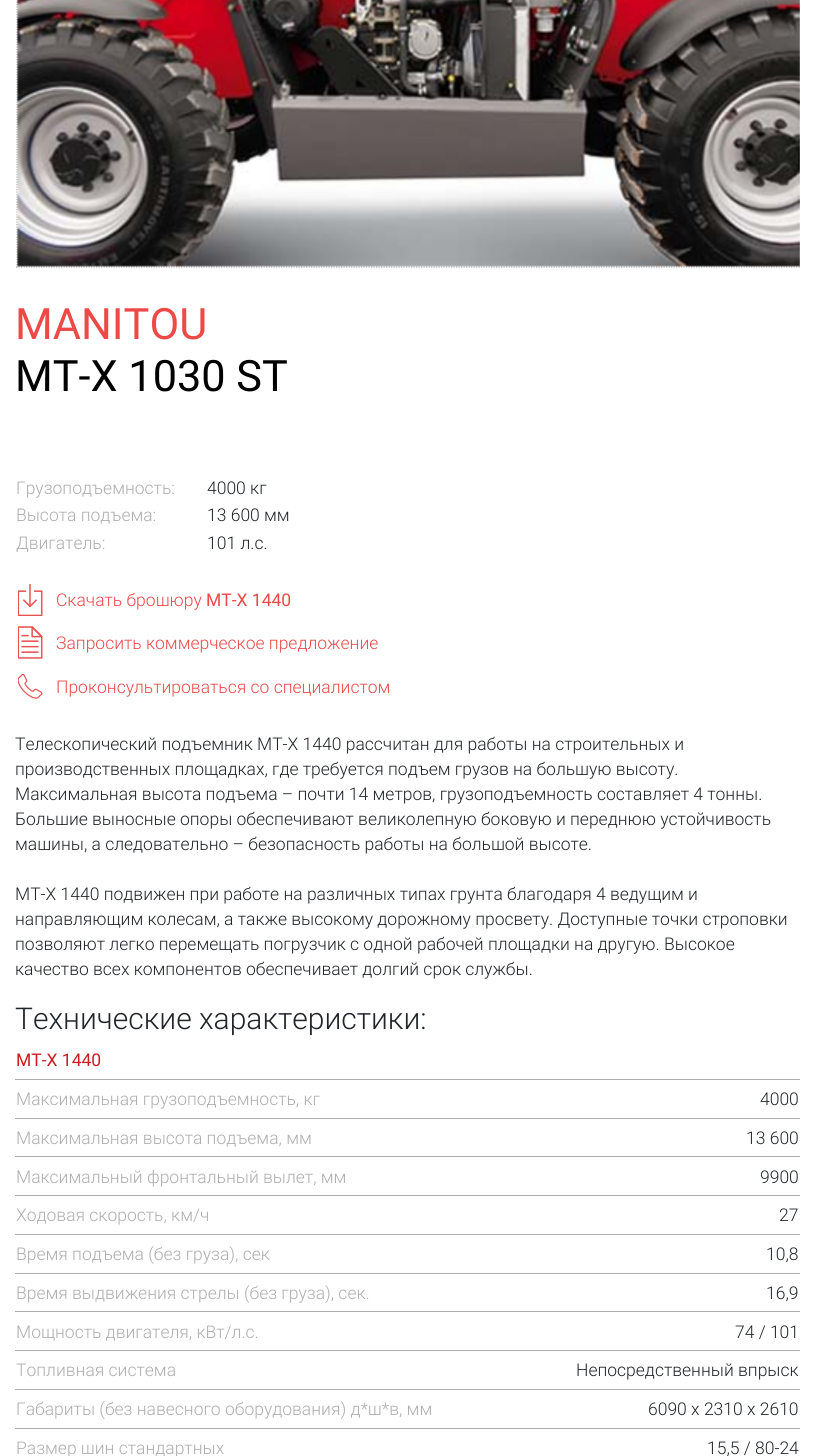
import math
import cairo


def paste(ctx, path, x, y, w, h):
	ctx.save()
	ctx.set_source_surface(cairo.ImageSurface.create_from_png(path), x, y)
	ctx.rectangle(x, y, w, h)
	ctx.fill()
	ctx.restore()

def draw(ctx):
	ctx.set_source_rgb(1, 1, 1)
	ctx.paint()
	ctx.save()
	ctx.rectangle(15, 0, 785, 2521)
	ctx.clip()
	ctx.new_path()
	ctx.move_to(800.5, -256)
	ctx.line_to(800.5, 267.5)
	ctx.set_source_rgb(0.682, 0.682, 0.682)
	ctx.set_line_width(1.2)
	ctx.set_dash([1.25, 1.25])
	ctx.stroke()
	ctx.restore()
	ctx.new_path()
	ctx.move_to(16, 267)
	ctx.line_to(801, 267)
	ctx.set_source_rgb(0.682, 0.682, 0.682)
	ctx.set_line_width(1.2)
	ctx.set_dash([1.25, 1.25])
	ctx.stroke()
	ctx.new_path()
	ctx.move_to(17, -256)
	ctx.line_to(17, 267.5)
	ctx.stroke()
	paste(ctx, 'media/1.png', 17, 0, 783, 267)
	ctx.select_font_face('Roboto')
	ctx.set_font_size(43.25)
	ctx.set_source_rgb(0.922, 0.286, 0.278)
	ctx.move_to(15, 339)
	ctx.show_text('MANITOU')
	ctx.set_source_rgb(0, 0, 0)
	ctx.move_to(15, 391)
	ctx.show_text('MT-X 1030 ST')
	ctx.select_font_face('Roboto Light')
	ctx.set_font_size(17.5)
	ctx.set_source_rgb(0.682, 0.682, 0.682)
	ctx.move_to(16, 494)
	ctx.show_text('Грузоподъемность:')
	ctx.set_source_rgb(0.129, 0.145, 0.161)
	ctx.move_to(207, 494)
	ctx.show_text('4000 кг')
	ctx.set_source_rgb(0.682, 0.682, 0.682)
	ctx.move_to(16, 521)
	ctx.show_text('Высота подъема:')
	ctx.set_source_rgb(0.129, 0.145, 0.161)
	ctx.move_to(207, 521)
	ctx.show_text('13 600 мм')
	ctx.set_source_rgb(0.682, 0.682, 0.682)
	ctx.move_to(16, 549)
	ctx.show_text('Двигатель:')
	ctx.set_source_rgb(0.129, 0.145, 0.161)
	ctx.move_to(207, 549)
	ctx.show_text('101 л.с.')
	paste(ctx, 'media/2.png', 18, 584, 25, 32)
	ctx.set_source_rgb(0.922, 0.286, 0.278)
	ctx.move_to(56, 606)
	ctx.show_text('Скачать брошюру')
	ctx.select_font_face('Roboto')
	ctx.move_to(206, 606)
	ctx.show_text('MT-X 1440')
	paste(ctx, 'media/3.png', 18, 626, 25, 33)
	ctx.select_font_face('Roboto Light')
	ctx.move_to(56, 649)
	ctx.show_text('Запросить коммерческое предложение')
	paste(ctx, 'media/4.png', 18, 674, 25, 25)
	ctx.move_to(56, 693)
	ctx.show_text('Проконсультироваться со специалистом')
	ctx.set_source_rgb(0.129, 0.145, 0.161)
	for x, y, s in [
		(15, 750, 'Телескопический подъемник MT-X 1440 рассчитан для работы на строительных и'),
		(15, 775, 'производственных площадках, где требуется подъем грузов на большую высоту.'),
		(15, 800, 'Максимальная высота подъема – почти 14 метров, грузоподъемность составляет 4 тонны.'),
		(15, 825, 'Большие выносные опоры обеспечивают великолепную боковую и переднюю устойчивость'),
		(15, 850, 'машины, а следовательно – безопасность работы на большой высоте.'),
		(15, 900, 'MT-X 1440 подвижен при работе на различных типах грунта благодаря 4 ведущим и'),
		(15, 925, 'направляющим колесам, а также высокому дорожному просвету. Доступные точки строповки'),
		(15, 950, 'позволяют легко перемещать погрузчик с одной рабочей площадки на другую. Высокое'),
		(15, 975, 'качество всех компонентов обеспечивает долгий срок службы.'),
	]:
		ctx.move_to(x, y)
		ctx.show_text(s)
	ctx.set_font_size(30)
	ctx.move_to(15, 1029)
	ctx.show_text('Технические характеристики:')
	ctx.set_source_rgb(0.682, 0.682, 0.682)
	ctx.rectangle(15, 1079, 785, 1)
	ctx.fill()
	ctx.select_font_face('Roboto')
	ctx.set_font_size(17.5)
	ctx.set_source_rgb(0.796, 0.114, 0.133)
	ctx.move_to(16, 1066)
	ctx.show_text('MT-X 1440')
	ctx.set_source_rgb(0.682, 0.682, 0.682)
	ctx.rectangle(15, 1118, 785, 1)
	ctx.fill()
	ctx.select_font_face('Roboto Light')
	ctx.move_to(16, 1105)
	ctx.show_text('Максимальная грузоподъемность, кг')
	ctx.set_source_rgb(0.129, 0.145, 0.161)
	ctx.move_to(760, 1105)
	ctx.show_text('4000')
	ctx.set_source_rgb(0.682, 0.682, 0.682)
	ctx.rectangle(15, 1156, 785, 1)
	ctx.fill()
	ctx.move_to(16, 1144)
	ctx.show_text('Максимальная высота подъема, мм')
	ctx.set_source_rgb(0.129, 0.145, 0.161)
	ctx.move_to(746, 1144)
	ctx.show_text('13 600')
	ctx.set_source_rgb(0.682, 0.682, 0.682)
	ctx.rectangle(15, 1195, 785, 1)
	ctx.fill()
	ctx.move_to(16, 1183)
	ctx.show_text('Максимальный фронтальный вылет, мм')
	ctx.set_source_rgb(0.129, 0.145, 0.161)
	ctx.move_to(760, 1183)
	ctx.show_text('9900')
	ctx.set_source_rgb(0.682, 0.682, 0.682)
	ctx.rectangle(15, 1234, 785, 1)
	ctx.fill()
	ctx.move_to(16, 1221)
	ctx.show_text('Ходовая скорость, км/ч')
	ctx.set_source_rgb(0.129, 0.145, 0.161)
	ctx.move_to(779, 1221)
	ctx.show_text('27')
	ctx.set_source_rgb(0.682, 0.682, 0.682)
	ctx.rectangle(15, 1273, 785, 1)
	ctx.fill()
	ctx.move_to(16, 1260)
	ctx.show_text('Время подъема (без груза), сек')
	ctx.set_source_rgb(0.129, 0.145, 0.161)
	ctx.move_to(766, 1260)
	ctx.show_text('10,8')
	ctx.set_source_rgb(0.682, 0.682, 0.682)
	ctx.rectangle(15, 1311, 785, 1)
	ctx.fill()
	ctx.move_to(16, 1299)
	ctx.show_text('Время выдвижения стрелы (без груза), сек.')
	ctx.set_source_rgb(0.129, 0.145, 0.161)
	ctx.move_to(766, 1299)
	ctx.show_text('16,9')
	ctx.set_source_rgb(0.682, 0.682, 0.682)
	ctx.rectangle(15, 1350, 785, 1)
	ctx.fill()
	ctx.move_to(16, 1338)
	ctx.show_text('Мощность двигателя, кВт/л.с.')
	ctx.set_source_rgb(0.129, 0.145, 0.161)
	ctx.move_to(735, 1338)
	ctx.show_text('74 / 101')
	ctx.set_source_rgb(0.682, 0.682, 0.682)
	ctx.rectangle(15, 1389, 785, 1)
	ctx.fill()
	ctx.move_to(16, 1376)
	ctx.show_text('Топливная система')
	ctx.set_source_rgb(0.129, 0.145, 0.161)
	ctx.move_to(576, 1376)
	ctx.show_text('Непосредственный впрыск')
	ctx.set_source_rgb(0.682, 0.682, 0.682)
	ctx.rectangle(15, 1428, 785, 1)
	ctx.fill()
	ctx.move_to(16, 1415)
	ctx.show_text('Габариты (без навесного оборудования) д*ш*в, мм')
	ctx.set_source_rgb(0.129, 0.145, 0.161)
	ctx.move_to(648, 1415)
	ctx.show_text('6090 х 2310 х 2610')
	ctx.set_source_rgb(0.682, 0.682, 0.682)
	ctx.move_to(16, 1454)
	ctx.show_text('Размер шин стандартных')
	ctx.set_source_rgb(0.129, 0.145, 0.161)
	ctx.move_to(707, 1454)
	ctx.show_text('15,5 / 80-24')


surface = cairo.ImageSurface(cairo.FORMAT_RGB24, 815, 1456)
ctx = cairo.Context(surface)
options = cairo.FontOptions()
options.set_hint_metrics(cairo.HINT_METRICS_OFF)
options.set_hint_style(cairo.HINT_STYLE_NONE)
ctx.set_font_options(options)
ctx.set_miter_limit(4)
draw(ctx)
surface.write_to_png('image.png')
